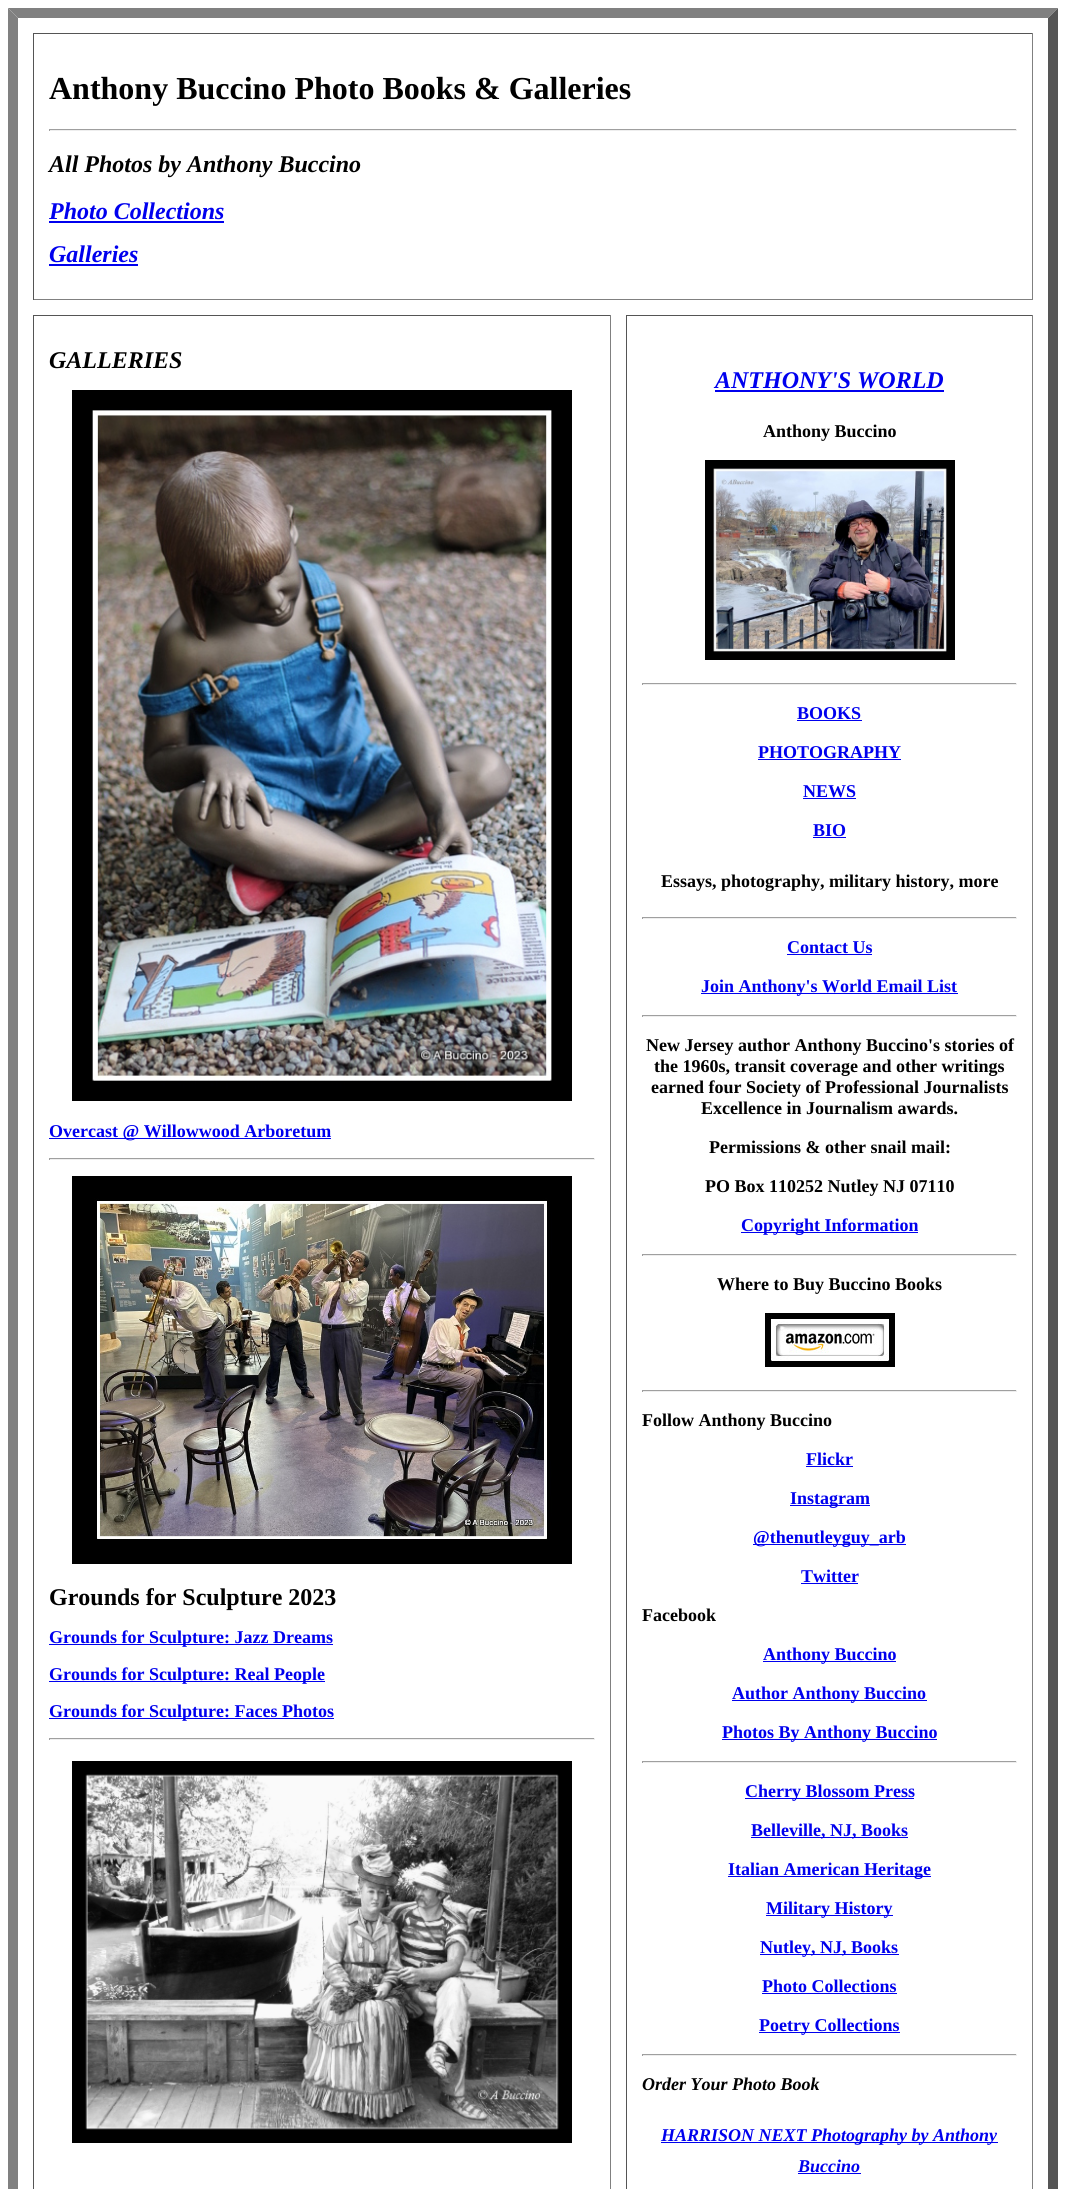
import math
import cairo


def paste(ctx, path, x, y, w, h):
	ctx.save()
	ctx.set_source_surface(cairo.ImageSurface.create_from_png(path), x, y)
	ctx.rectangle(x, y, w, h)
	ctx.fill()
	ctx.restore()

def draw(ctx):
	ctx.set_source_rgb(1, 1, 1)
	ctx.paint()
	ctx.set_source_rgb(0.502, 0.502, 0.502)
	ctx.new_path()
	ctx.move_to(8, 8)
	ctx.line_to(1058, 8)
	ctx.line_to(1048, 18)
	ctx.line_to(18, 18)
	ctx.close_path()
	ctx.fill()
	ctx.set_source_rgb(0.333, 0.333, 0.333)
	ctx.new_path()
	ctx.move_to(1058, 8)
	ctx.line_to(1058, 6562)
	ctx.line_to(1048, 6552)
	ctx.line_to(1048, 18)
	ctx.close_path()
	ctx.fill()
	ctx.set_source_rgb(0.502, 0.502, 0.502)
	ctx.new_path()
	ctx.move_to(8, 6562)
	ctx.line_to(8, 8)
	ctx.line_to(18, 18)
	ctx.line_to(18, 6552)
	ctx.close_path()
	ctx.fill()
	ctx.set_source_rgb(0.333, 0.333, 0.333)
	ctx.rectangle(33, 33, 1000, 1)
	ctx.fill()
	ctx.set_source_rgb(0.502, 0.502, 0.502)
	ctx.rectangle(1032, 33, 1, 267)
	ctx.rectangle(33, 299, 1000, 1)
	ctx.fill()
	ctx.set_source_rgb(0.333, 0.333, 0.333)
	ctx.rectangle(33, 33, 1, 267)
	ctx.fill()
	ctx.select_font_face('Liberation Serif', cairo.FONT_SLANT_NORMAL, cairo.FONT_WEIGHT_BOLD)
	ctx.set_font_size(32)
	ctx.set_source_rgb(0, 0, 0)
	ctx.move_to(49, 99)
	ctx.show_text('Anthony Buccino Photo Books & Galleries')
	ctx.set_source_rgb(0.624, 0.624, 0.624)
	ctx.rectangle(49, 129, 968, 1)
	ctx.fill()
	ctx.set_source_rgb(0.933, 0.933, 0.933)
	ctx.rectangle(1016, 129, 1, 2)
	ctx.rectangle(49, 130, 968, 1)
	ctx.fill()
	ctx.set_source_rgb(0.624, 0.624, 0.624)
	ctx.rectangle(49, 129, 1, 2)
	ctx.fill()
	ctx.select_font_face('Liberation Serif', cairo.FONT_SLANT_ITALIC, cairo.FONT_WEIGHT_BOLD)
	ctx.set_font_size(24)
	ctx.set_source_rgb(0, 0, 0)
	ctx.move_to(49, 172)
	ctx.show_text('All Photos by Anthony Buccino')
	ctx.set_source_rgb(0, 0, 0.933)
	ctx.move_to(49, 219)
	ctx.show_text('Photo Collections')
	ctx.rectangle(49, 221, 175, 2)
	ctx.fill()
	ctx.move_to(49, 262)
	ctx.show_text('Galleries')
	ctx.rectangle(49, 264, 89, 2)
	ctx.fill()
	ctx.set_source_rgb(0.333, 0.333, 0.333)
	ctx.rectangle(33, 315, 578, 1)
	ctx.fill()
	ctx.set_source_rgb(0.502, 0.502, 0.502)
	ctx.rectangle(610, 315, 1, 1874)
	ctx.fill()
	ctx.set_source_rgb(0.333, 0.333, 0.333)
	ctx.rectangle(33, 315, 1, 1874)
	ctx.fill()
	ctx.set_source_rgb(0, 0, 0)
	ctx.move_to(49, 368)
	ctx.show_text('GALLERIES')
	paste(ctx, 'media/1.png', 72, 390, 500, 711)
	ctx.set_source_rgb(0, 0, 0.933)
	ctx.rectangle(49, 1138, 282, 1)
	ctx.fill()
	ctx.select_font_face('Liberation Serif', cairo.FONT_SLANT_NORMAL, cairo.FONT_WEIGHT_BOLD)
	ctx.set_font_size(18)
	ctx.move_to(49, 1137)
	ctx.show_text('Overcast @ Willowwood Arboretum')
	ctx.set_source_rgb(0.624, 0.624, 0.624)
	ctx.rectangle(49, 1158, 546, 1)
	ctx.fill()
	ctx.set_source_rgb(0.933, 0.933, 0.933)
	ctx.rectangle(594, 1158, 1, 2)
	ctx.rectangle(49, 1159, 546, 1)
	ctx.fill()
	ctx.set_source_rgb(0.624, 0.624, 0.624)
	ctx.rectangle(49, 1158, 1, 2)
	ctx.fill()
	paste(ctx, 'media/2.png', 72, 1176, 500, 388)
	ctx.set_font_size(24)
	ctx.set_source_rgb(0, 0, 0)
	ctx.move_to(49, 1605)
	ctx.show_text('Grounds for Sculpture 2023')
	ctx.set_source_rgb(0, 0, 0.933)
	ctx.rectangle(49, 1644, 284, 1)
	ctx.fill()
	ctx.set_font_size(18)
	ctx.move_to(49, 1643)
	ctx.show_text('Grounds for Sculpture: Jazz Dreams')
	ctx.rectangle(49, 1681, 276, 1)
	ctx.fill()
	ctx.move_to(49, 1680)
	ctx.show_text('Grounds for Sculpture: Real People')
	ctx.rectangle(49, 1718, 285, 1)
	ctx.fill()
	ctx.move_to(49, 1717)
	ctx.show_text('Grounds for Sculpture: Faces Photos')
	ctx.set_source_rgb(0.624, 0.624, 0.624)
	ctx.rectangle(49, 1738, 546, 1)
	ctx.fill()
	ctx.set_source_rgb(0.933, 0.933, 0.933)
	ctx.rectangle(594, 1738, 1, 2)
	ctx.rectangle(49, 1739, 546, 1)
	ctx.fill()
	ctx.set_source_rgb(0.624, 0.624, 0.624)
	ctx.rectangle(49, 1738, 1, 2)
	ctx.fill()
	paste(ctx, 'media/3.png', 72, 1761, 500, 382)
	ctx.set_source_rgb(0.333, 0.333, 0.333)
	ctx.rectangle(626, 315, 407, 1)
	ctx.fill()
	ctx.set_source_rgb(0.502, 0.502, 0.502)
	ctx.rectangle(1032, 315, 1, 1874)
	ctx.fill()
	ctx.set_source_rgb(0.333, 0.333, 0.333)
	ctx.rectangle(626, 315, 1, 1874)
	ctx.fill()
	ctx.select_font_face('Liberation Serif', cairo.FONT_SLANT_ITALIC, cairo.FONT_WEIGHT_BOLD)
	ctx.set_font_size(24)
	ctx.set_source_rgb(0, 0, 0.933)
	ctx.move_to(715, 388)
	ctx.show_text('ANTHONY\'S WORLD')
	ctx.rectangle(715, 390, 229, 2)
	ctx.fill()
	ctx.select_font_face('Liberation Serif', cairo.FONT_SLANT_NORMAL, cairo.FONT_WEIGHT_BOLD)
	ctx.set_font_size(18)
	ctx.set_source_rgb(0, 0, 0)
	ctx.move_to(763, 437)
	ctx.show_text('Anthony Buccino')
	paste(ctx, 'media/4.png', 705, 460, 250, 200)
	ctx.set_source_rgb(0.624, 0.624, 0.624)
	ctx.rectangle(642, 683, 375, 1)
	ctx.fill()
	ctx.set_source_rgb(0.933, 0.933, 0.933)
	ctx.rectangle(1016, 683, 1, 2)
	ctx.rectangle(642, 684, 375, 1)
	ctx.fill()
	ctx.set_source_rgb(0.624, 0.624, 0.624)
	ctx.rectangle(642, 683, 1, 2)
	ctx.fill()
	ctx.set_source_rgb(0, 0, 0.933)
	ctx.move_to(797, 719)
	ctx.show_text('BOOKS')
	ctx.rectangle(797, 720, 65, 1)
	ctx.fill()
	ctx.move_to(758, 758)
	ctx.show_text('PHOTOGRAPHY')
	ctx.rectangle(758, 759, 143, 1)
	ctx.fill()
	ctx.move_to(803, 797)
	ctx.show_text('NEWS')
	ctx.rectangle(803, 798, 53, 1)
	ctx.fill()
	ctx.move_to(813, 836)
	ctx.show_text('BIO')
	ctx.rectangle(813, 837, 33, 1)
	ctx.fill()
	ctx.set_source_rgb(0, 0, 0)
	ctx.move_to(661, 887)
	ctx.show_text('Essays, photography, military history, more')
	ctx.set_source_rgb(0.624, 0.624, 0.624)
	ctx.rectangle(642, 917, 375, 1)
	ctx.fill()
	ctx.set_source_rgb(0.933, 0.933, 0.933)
	ctx.rectangle(1016, 917, 1, 2)
	ctx.rectangle(642, 918, 375, 1)
	ctx.fill()
	ctx.set_source_rgb(0.624, 0.624, 0.624)
	ctx.rectangle(642, 917, 1, 2)
	ctx.fill()
	ctx.set_source_rgb(0, 0, 0.933)
	ctx.move_to(787, 953)
	ctx.show_text('Contact Us')
	ctx.rectangle(787, 954, 85, 1)
	ctx.fill()
	ctx.rectangle(701, 993, 257, 1)
	ctx.fill()
	ctx.move_to(701, 992)
	ctx.show_text('Join Anthony\'s World Email List')
	ctx.set_source_rgb(0.624, 0.624, 0.624)
	ctx.rectangle(642, 1015, 375, 1)
	ctx.fill()
	ctx.set_source_rgb(0.933, 0.933, 0.933)
	ctx.rectangle(1016, 1015, 1, 2)
	ctx.rectangle(642, 1016, 375, 1)
	ctx.fill()
	ctx.set_source_rgb(0.624, 0.624, 0.624)
	ctx.rectangle(642, 1015, 1, 2)
	ctx.fill()
	ctx.set_source_rgb(0, 0, 0)
	for x, y, s in [
		(646, 1051, 'New Jersey author Anthony Buccino\'s stories of'),
		(654, 1072, 'the 1960s, transit coverage and other writings'),
		(651, 1093, 'earned four Society of Professional Journalists'),
		(701, 1114, 'Excellence in Journalism awards.'),
		(709, 1153, 'Permissions & other snail mail:'),
		(705, 1192, 'PO Box 110252 Nutley NJ 07110'),
	]:
		ctx.move_to(x, y)
		ctx.show_text(s)
	ctx.set_source_rgb(0, 0, 0.933)
	ctx.rectangle(741, 1232, 177, 1)
	ctx.fill()
	ctx.move_to(741, 1231)
	ctx.show_text('Copyright Information')
	ctx.set_source_rgb(0.624, 0.624, 0.624)
	ctx.rectangle(642, 1254, 375, 1)
	ctx.fill()
	ctx.set_source_rgb(0.933, 0.933, 0.933)
	ctx.rectangle(1016, 1254, 1, 2)
	ctx.rectangle(642, 1255, 375, 1)
	ctx.fill()
	ctx.set_source_rgb(0.624, 0.624, 0.624)
	ctx.rectangle(642, 1254, 1, 2)
	ctx.fill()
	ctx.set_source_rgb(0, 0, 0)
	ctx.move_to(717, 1290)
	ctx.show_text('Where to Buy Buccino Books')
	paste(ctx, 'media/5.png', 765, 1313, 130, 54)
	ctx.set_source_rgb(0.624, 0.624, 0.624)
	ctx.rectangle(642, 1390, 375, 1)
	ctx.fill()
	ctx.set_source_rgb(0.933, 0.933, 0.933)
	ctx.rectangle(1016, 1390, 1, 2)
	ctx.rectangle(642, 1391, 375, 1)
	ctx.fill()
	ctx.set_source_rgb(0.624, 0.624, 0.624)
	ctx.rectangle(642, 1390, 1, 2)
	ctx.fill()
	ctx.set_source_rgb(0, 0, 0)
	ctx.move_to(642, 1426)
	ctx.show_text('Follow Anthony Buccino')
	ctx.set_source_rgb(0, 0, 0.933)
	ctx.move_to(806, 1465)
	ctx.show_text('Flickr')
	ctx.rectangle(806, 1466, 47, 1)
	ctx.fill()
	ctx.rectangle(790, 1505, 80, 1)
	ctx.fill()
	ctx.move_to(790, 1504)
	ctx.show_text('Instagram')
	ctx.rectangle(753, 1544, 153, 1)
	ctx.fill()
	ctx.move_to(753, 1543)
	ctx.show_text('@thenutleyguy_arb')
	ctx.move_to(801, 1582)
	ctx.show_text('Twitter')
	ctx.rectangle(801, 1583, 57, 1)
	ctx.fill()
	ctx.set_source_rgb(0, 0, 0)
	ctx.move_to(642, 1621)
	ctx.show_text('Facebook')
	ctx.set_source_rgb(0, 0, 0.933)
	ctx.rectangle(763, 1661, 133, 1)
	ctx.fill()
	ctx.move_to(763, 1660)
	ctx.show_text('Anthony Buccino')
	ctx.rectangle(732, 1700, 195, 1)
	ctx.fill()
	ctx.move_to(732, 1699)
	ctx.show_text('Author Anthony Buccino')
	ctx.rectangle(722, 1739, 215, 1)
	ctx.fill()
	ctx.move_to(722, 1738)
	ctx.show_text('Photos By Anthony Buccino')
	ctx.set_source_rgb(0.624, 0.624, 0.624)
	ctx.rectangle(642, 1761, 375, 1)
	ctx.fill()
	ctx.set_source_rgb(0.933, 0.933, 0.933)
	ctx.rectangle(1016, 1761, 1, 2)
	ctx.rectangle(642, 1762, 375, 1)
	ctx.fill()
	ctx.set_source_rgb(0.624, 0.624, 0.624)
	ctx.rectangle(642, 1761, 1, 2)
	ctx.fill()
	ctx.set_source_rgb(0, 0, 0.933)
	ctx.rectangle(745, 1798, 169, 1)
	ctx.fill()
	ctx.move_to(745, 1797)
	ctx.show_text('Cherry Blossom Press')
	ctx.rectangle(751, 1837, 157, 1)
	ctx.fill()
	ctx.move_to(751, 1836)
	ctx.show_text('Belleville, NJ, Books')
	ctx.rectangle(728, 1876, 203, 1)
	ctx.fill()
	ctx.move_to(728, 1875)
	ctx.show_text('Italian American Heritage')
	ctx.rectangle(766, 1915, 127, 1)
	ctx.fill()
	ctx.move_to(766, 1914)
	ctx.show_text('Military History')
	ctx.rectangle(760, 1954, 139, 1)
	ctx.fill()
	ctx.move_to(760, 1953)
	ctx.show_text('Nutley, NJ, Books')
	ctx.move_to(762, 1992)
	ctx.show_text('Photo Collections')
	ctx.rectangle(762, 1993, 135, 1)
	ctx.fill()
	ctx.rectangle(759, 2032, 141, 1)
	ctx.fill()
	ctx.move_to(759, 2031)
	ctx.show_text('Poetry Collections')
	ctx.set_source_rgb(0.624, 0.624, 0.624)
	ctx.rectangle(642, 2054, 375, 1)
	ctx.fill()
	ctx.set_source_rgb(0.933, 0.933, 0.933)
	ctx.rectangle(1016, 2054, 1, 2)
	ctx.rectangle(642, 2055, 375, 1)
	ctx.fill()
	ctx.set_source_rgb(0.624, 0.624, 0.624)
	ctx.rectangle(642, 2054, 1, 2)
	ctx.fill()
	ctx.select_font_face('Liberation Serif', cairo.FONT_SLANT_ITALIC, cairo.FONT_WEIGHT_BOLD)
	ctx.set_source_rgb(0, 0, 0)
	ctx.move_to(642, 2090)
	ctx.show_text('Order Your Photo Book')
	ctx.set_source_rgb(0, 0, 0.933)
	ctx.rectangle(661, 2142, 337, 1)
	ctx.fill()
	ctx.move_to(661, 2141)
	ctx.show_text('HARRISON NEXT Photography by Anthony')
	ctx.move_to(798, 2172)
	ctx.show_text('Buccino')
	ctx.rectangle(798, 2173, 63, 1)
	ctx.fill()


surface = cairo.ImageSurface(cairo.FORMAT_RGB24, 1066, 2189)
ctx = cairo.Context(surface)
options = cairo.FontOptions()
options.set_hint_metrics(cairo.HINT_METRICS_OFF)
options.set_hint_style(cairo.HINT_STYLE_NONE)
ctx.set_font_options(options)
ctx.set_miter_limit(4)
draw(ctx)
surface.write_to_png('image.png')
